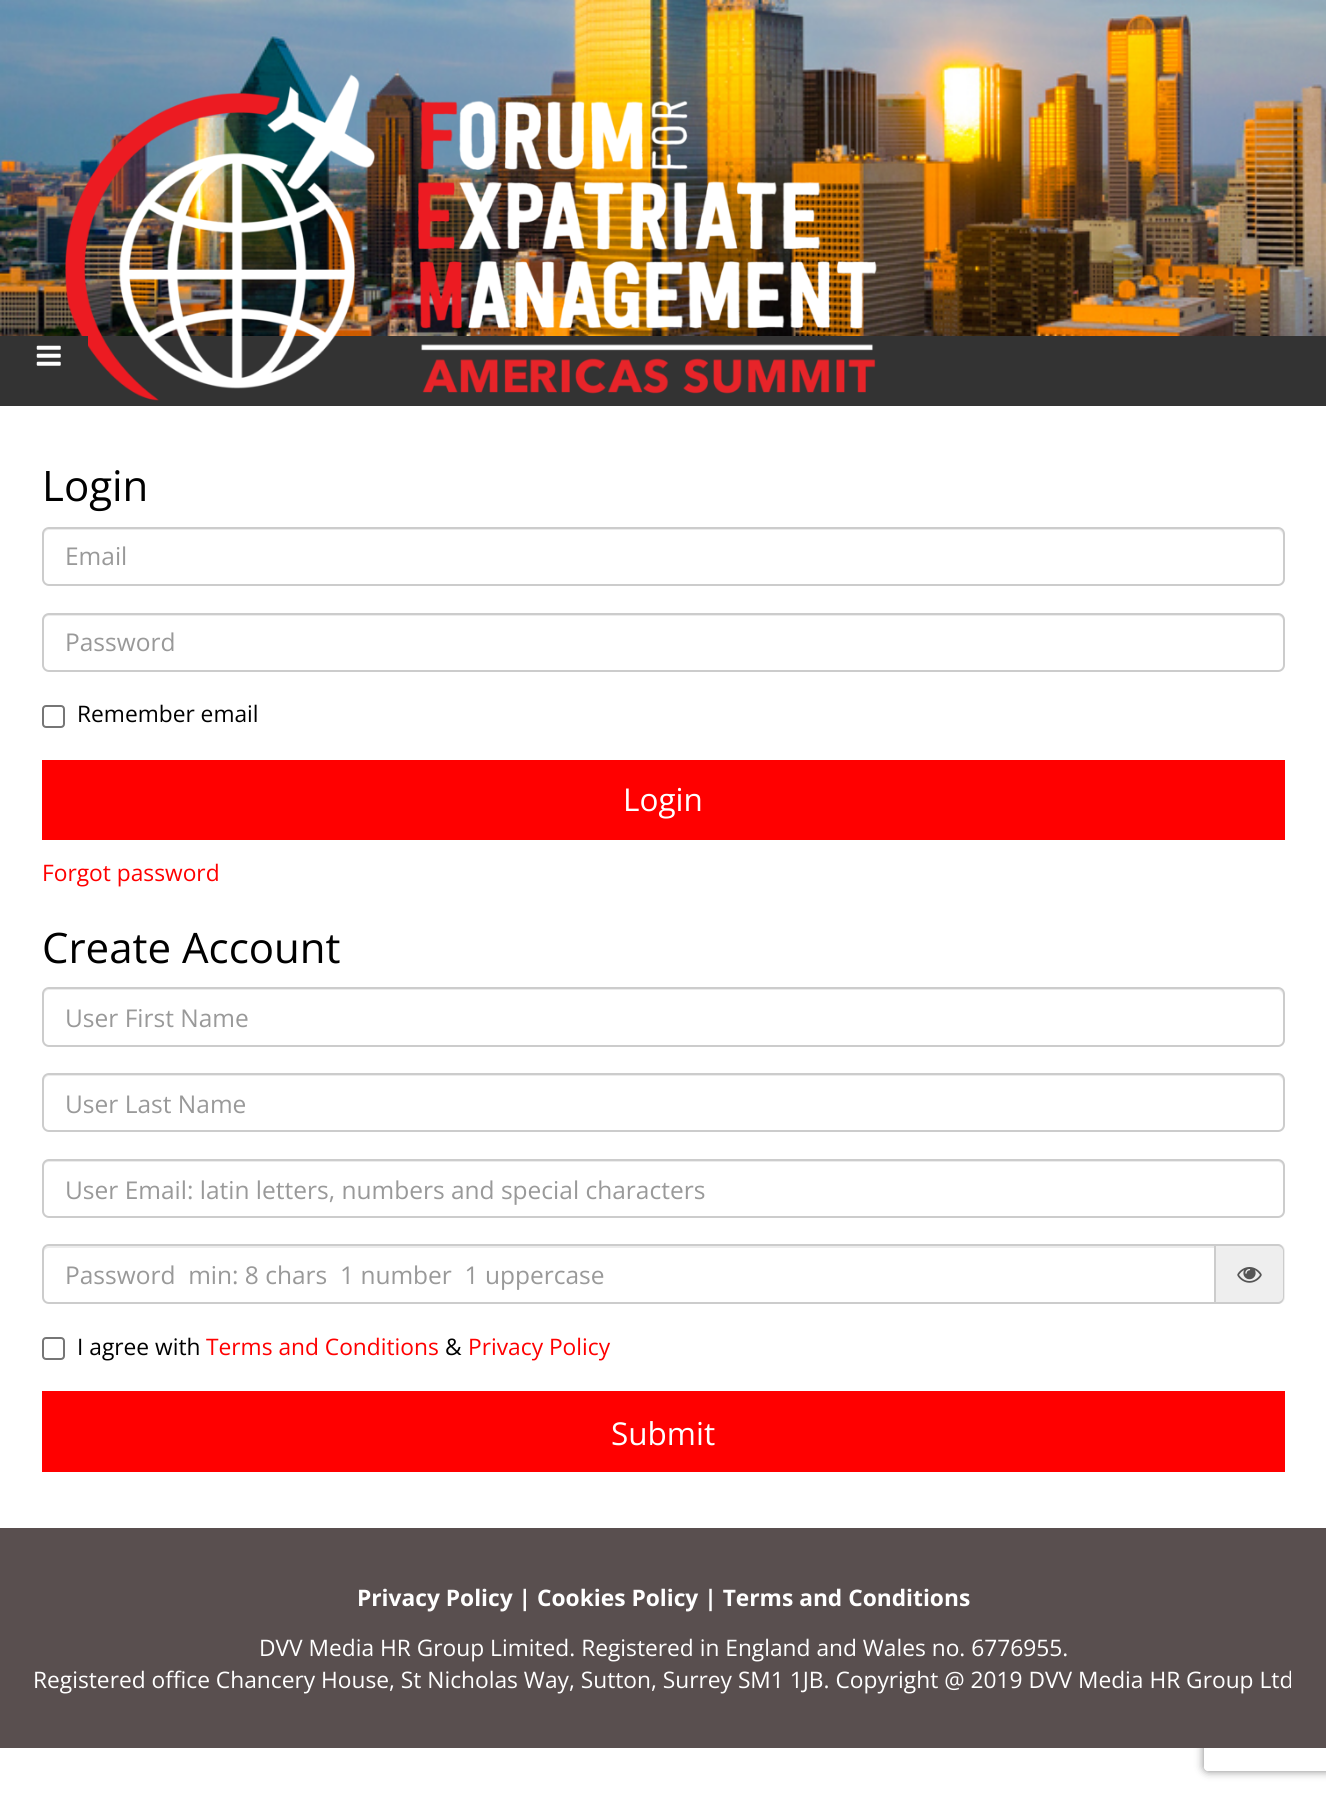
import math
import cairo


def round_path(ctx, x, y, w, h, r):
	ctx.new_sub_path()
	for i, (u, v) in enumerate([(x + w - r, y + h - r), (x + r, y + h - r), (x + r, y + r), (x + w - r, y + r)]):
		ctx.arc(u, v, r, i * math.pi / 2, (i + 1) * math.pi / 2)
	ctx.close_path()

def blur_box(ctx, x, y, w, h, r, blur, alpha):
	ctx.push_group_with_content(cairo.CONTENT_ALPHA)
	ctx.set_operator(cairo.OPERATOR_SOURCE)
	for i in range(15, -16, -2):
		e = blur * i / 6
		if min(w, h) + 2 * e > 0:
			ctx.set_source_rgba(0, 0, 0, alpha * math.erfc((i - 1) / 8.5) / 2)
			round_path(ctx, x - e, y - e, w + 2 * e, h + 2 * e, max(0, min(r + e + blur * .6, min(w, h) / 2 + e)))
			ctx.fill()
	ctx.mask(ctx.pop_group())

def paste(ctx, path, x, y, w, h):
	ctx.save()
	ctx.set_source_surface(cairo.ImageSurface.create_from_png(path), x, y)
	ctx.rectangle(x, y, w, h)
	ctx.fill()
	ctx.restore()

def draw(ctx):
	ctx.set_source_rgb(1, 1, 1)
	ctx.paint()
	paste(ctx, 'media/1.png', 0, 0, 1326, 336)
	ctx.set_source_rgb(0.2, 0.2, 0.2)
	ctx.rectangle(0, 336, 1326, 70)
	ctx.fill()
	paste(ctx, 'media/2.png', 65, 74, 812, 327)
	ctx.rectangle(81, 336, 7, 11)
	ctx.fill()
	paste(ctx, 'media/3.png', 36, 345, 25, 21)
	ctx.select_font_face('Open Sans')
	ctx.set_font_size(42)
	ctx.set_source_rgb(0, 0, 0)
	ctx.move_to(42, 501)
	ctx.show_text('Login')
	ctx.set_source_rgb(0.925, 0.925, 0.925)
	ctx.new_path()
	ctx.move_to(49, 530)
	ctx.line_to(1278, 530)
	ctx.curve_to(1280, 530, 1283, 533, 1283, 536)
	ctx.line_to(1283, 534)
	ctx.curve_to(1283, 531, 1281, 529, 1278, 529)
	ctx.line_to(49, 529)
	ctx.curve_to(46, 529, 44, 531, 44, 534)
	ctx.line_to(44, 536)
	ctx.curve_to(44, 533, 46, 530, 49, 530)
	ctx.close_path()
	ctx.fill()
	round_path(ctx, 43, 528, 1241, 57, 6)
	ctx.set_source_rgb(0.8, 0.8, 0.8)
	ctx.stroke()
	ctx.set_font_size(24.5)
	ctx.set_source_rgb(0.6, 0.6, 0.6)
	ctx.move_to(65, 565)
	ctx.show_text('Email')
	ctx.set_source_rgb(0.925, 0.925, 0.925)
	ctx.new_path()
	ctx.move_to(49, 616)
	ctx.line_to(1278, 616)
	ctx.curve_to(1280, 616, 1283, 618, 1283, 621)
	ctx.line_to(1283, 619)
	ctx.curve_to(1283, 616, 1281, 614, 1278, 614)
	ctx.line_to(49, 614)
	ctx.curve_to(46, 614, 44, 616, 44, 619)
	ctx.line_to(44, 621)
	ctx.curve_to(44, 618, 46, 616, 49, 616)
	ctx.close_path()
	ctx.fill()
	round_path(ctx, 43, 614, 1241, 57, 6)
	ctx.set_source_rgb(0.8, 0.8, 0.8)
	ctx.stroke()
	ctx.set_source_rgb(0.6, 0.6, 0.6)
	ctx.move_to(65, 651)
	ctx.show_text('Password')
	round_path(ctx, 43, 706, 21, 21, 3)
	ctx.set_source_rgb(0.463, 0.463, 0.463)
	ctx.stroke()
	ctx.set_font_size(22.75)
	ctx.set_source_rgb(0, 0, 0)
	ctx.move_to(77, 722)
	ctx.show_text('Remember email')
	ctx.set_source_rgb(1, 0, 0)
	ctx.rectangle(42, 760, 1243, 80)
	ctx.fill()
	ctx.set_font_size(31.5)
	ctx.set_source_rgb(1, 1, 1)
	ctx.move_to(623, 811)
	ctx.show_text('Login')
	ctx.set_font_size(22.75)
	ctx.set_source_rgb(1, 0, 0)
	ctx.move_to(42, 881)
	ctx.show_text('Forgot password')
	ctx.set_font_size(42)
	ctx.set_source_rgb(0, 0, 0)
	ctx.move_to(42, 963)
	ctx.show_text('Create Account')
	ctx.set_source_rgb(0.925, 0.925, 0.925)
	ctx.new_path()
	ctx.move_to(49, 990)
	ctx.line_to(1278, 990)
	ctx.curve_to(1280, 990, 1283, 993, 1283, 996)
	ctx.line_to(1283, 994)
	ctx.curve_to(1283, 991, 1281, 989, 1278, 989)
	ctx.line_to(49, 989)
	ctx.curve_to(46, 989, 44, 991, 44, 994)
	ctx.line_to(44, 996)
	ctx.curve_to(44, 993, 46, 990, 49, 990)
	ctx.close_path()
	ctx.fill()
	round_path(ctx, 43, 988, 1241, 58, 6)
	ctx.set_source_rgb(0.8, 0.8, 0.8)
	ctx.stroke()
	ctx.set_font_size(24.5)
	ctx.set_source_rgb(0.6, 0.6, 0.6)
	ctx.move_to(65, 1027)
	ctx.show_text('User First Name')
	ctx.set_source_rgb(0.925, 0.925, 0.925)
	ctx.new_path()
	ctx.move_to(49, 1076)
	ctx.line_to(1278, 1076)
	ctx.curve_to(1280, 1076, 1283, 1079, 1283, 1082)
	ctx.line_to(1283, 1080)
	ctx.curve_to(1283, 1077, 1281, 1075, 1278, 1075)
	ctx.line_to(49, 1075)
	ctx.curve_to(46, 1075, 44, 1077, 44, 1080)
	ctx.line_to(44, 1082)
	ctx.curve_to(44, 1079, 46, 1076, 49, 1076)
	ctx.close_path()
	ctx.fill()
	round_path(ctx, 43, 1074, 1241, 57, 6)
	ctx.set_source_rgb(0.8, 0.8, 0.8)
	ctx.stroke()
	ctx.set_source_rgb(0.6, 0.6, 0.6)
	ctx.move_to(65, 1113)
	ctx.show_text('User Last Name')
	ctx.set_source_rgb(0.925, 0.925, 0.925)
	ctx.new_path()
	ctx.move_to(49, 1162)
	ctx.line_to(1278, 1162)
	ctx.curve_to(1280, 1162, 1283, 1164, 1283, 1167)
	ctx.line_to(1283, 1165)
	ctx.curve_to(1283, 1162, 1281, 1160, 1278, 1160)
	ctx.line_to(49, 1160)
	ctx.curve_to(46, 1160, 44, 1162, 44, 1165)
	ctx.line_to(44, 1167)
	ctx.curve_to(44, 1164, 46, 1162, 49, 1162)
	ctx.close_path()
	ctx.fill()
	round_path(ctx, 43, 1160, 1241, 57, 6)
	ctx.set_source_rgb(0.8, 0.8, 0.8)
	ctx.stroke()
	ctx.set_source_rgb(0.6, 0.6, 0.6)
	ctx.move_to(65, 1199)
	ctx.show_text('User Email: latin letters, numbers and special characters')
	ctx.set_source_rgb(0.925, 0.925, 0.925)
	ctx.new_path()
	ctx.move_to(49, 1248)
	ctx.line_to(1214, 1248)
	ctx.line_to(1214, 1302)
	ctx.line_to(1215, 1302)
	ctx.line_to(1215, 1246)
	ctx.line_to(49, 1246)
	ctx.curve_to(46, 1246, 44, 1248, 44, 1251)
	ctx.line_to(44, 1253)
	ctx.curve_to(44, 1250, 46, 1248, 49, 1248)
	ctx.close_path()
	ctx.fill()
	ctx.new_path()
	ctx.move_to(49, 1245)
	ctx.line_to(1215, 1245)
	ctx.line_to(1215, 1303)
	ctx.line_to(49, 1303)
	ctx.curve_to(45.5, 1303, 43, 1300.5, 43, 1297)
	ctx.line_to(43, 1251)
	ctx.curve_to(43, 1247.5, 45.5, 1245, 49, 1245)
	ctx.close_path()
	ctx.set_source_rgb(0.8, 0.8, 0.8)
	ctx.stroke()
	ctx.set_source_rgb(0.6, 0.6, 0.6)
	ctx.move_to(65, 1284)
	ctx.show_text('Password  min: 8 chars  1 number  1 uppercase')
	ctx.set_source_rgb(0.933, 0.933, 0.933)
	ctx.new_path()
	ctx.move_to(1216, 1244)
	ctx.line_to(1278, 1244)
	ctx.curve_to(1282, 1244, 1285, 1247, 1285, 1251)
	ctx.line_to(1285, 1297)
	ctx.curve_to(1285, 1301, 1282, 1304, 1278, 1304)
	ctx.line_to(1216, 1304)
	ctx.close_path()
	ctx.fill()
	ctx.set_source_rgb(0.8, 0.8, 0.8)
	ctx.set_fill_rule(cairo.FILL_RULE_EVEN_ODD)
	ctx.new_path()
	ctx.move_to(1216, 1244)
	ctx.line_to(1278, 1244)
	ctx.curve_to(1281, 1244, 1284, 1247, 1284, 1251)
	ctx.line_to(1284, 1297)
	ctx.curve_to(1284, 1301, 1281, 1304, 1278, 1304)
	ctx.line_to(1216, 1304)
	ctx.close_path()
	ctx.move_to(1216, 1246)
	ctx.line_to(1278, 1246)
	ctx.curve_to(1280, 1246, 1283, 1248, 1283, 1251)
	ctx.line_to(1283, 1297)
	ctx.curve_to(1283, 1300, 1280, 1302, 1278, 1302)
	ctx.line_to(1216, 1302)
	ctx.close_path()
	ctx.fill()
	paste(ctx, 'media/4.png', 1237, 1267, 25, 16)
	round_path(ctx, 43, 1338, 21, 21, 3)
	ctx.set_source_rgb(0.463, 0.463, 0.463)
	ctx.stroke()
	ctx.set_font_size(22.75)
	ctx.set_source_rgb(0, 0, 0)
	ctx.move_to(77, 1355)
	ctx.show_text('I agree with')
	ctx.set_source_rgb(1, 0, 0)
	ctx.move_to(206, 1355)
	ctx.show_text('Terms and Conditions')
	ctx.set_source_rgb(0, 0, 0)
	ctx.move_to(445, 1355)
	ctx.show_text('&')
	ctx.set_source_rgb(1, 0, 0)
	ctx.move_to(468, 1355)
	ctx.show_text('Privacy Policy')
	ctx.rectangle(42, 1391, 1243, 81)
	ctx.fill()
	ctx.set_font_size(31.5)
	ctx.set_source_rgb(1, 1, 1)
	ctx.move_to(611, 1445)
	ctx.show_text('Submit')
	ctx.save()
	ctx.new_path()
	ctx.move_to(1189, 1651)
	ctx.line_to(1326, 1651)
	ctx.line_to(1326, 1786)
	ctx.line_to(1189, 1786)
	ctx.close_path()
	ctx.move_to(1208, 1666)
	ctx.line_to(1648, 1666)
	ctx.curve_to(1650, 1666, 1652, 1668, 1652, 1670)
	ctx.line_to(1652, 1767)
	ctx.curve_to(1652, 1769, 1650, 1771, 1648, 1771)
	ctx.line_to(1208, 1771)
	ctx.curve_to(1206, 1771, 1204, 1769, 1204, 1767)
	ctx.line_to(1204, 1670)
	ctx.curve_to(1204, 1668, 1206, 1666, 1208, 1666)
	ctx.close_path()
	ctx.clip()
	ctx.set_source_rgb(0.502, 0.502, 0.502)
	blur_box(ctx, 1204, 1666, 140, 105, 4, 4.5, 1)
	ctx.restore()
	ctx.set_source_rgb(0.349, 0.31, 0.31)
	ctx.rectangle(0, 1528, 1326, 220)
	ctx.fill()
	ctx.select_font_face('Open Sans', cairo.FONT_SLANT_NORMAL, cairo.FONT_WEIGHT_BOLD)
	ctx.set_font_size(22.75)
	ctx.set_source_rgb(1, 1, 1)
	ctx.move_to(357, 1606)
	ctx.show_text('Privacy Policy | Cookies Policy | Terms and Conditions')
	ctx.select_font_face('Open Sans')
	ctx.move_to(259, 1656)
	ctx.show_text('DVV Media HR Group Limited. Registered in England and Wales no. 6776955.')
	ctx.move_to(33, 1688)
	ctx.show_text('Registered office Chancery House, St Nicholas Way, Sutton, Surrey SM1 1JB. Copyright @ 2019 DVV Media HR Group Ltd')


surface = cairo.ImageSurface(cairo.FORMAT_RGB24, 1326, 1795)
ctx = cairo.Context(surface)
options = cairo.FontOptions()
options.set_hint_metrics(cairo.HINT_METRICS_OFF)
options.set_hint_style(cairo.HINT_STYLE_NONE)
ctx.set_font_options(options)
ctx.set_miter_limit(4)
draw(ctx)
surface.write_to_png('image.png')
